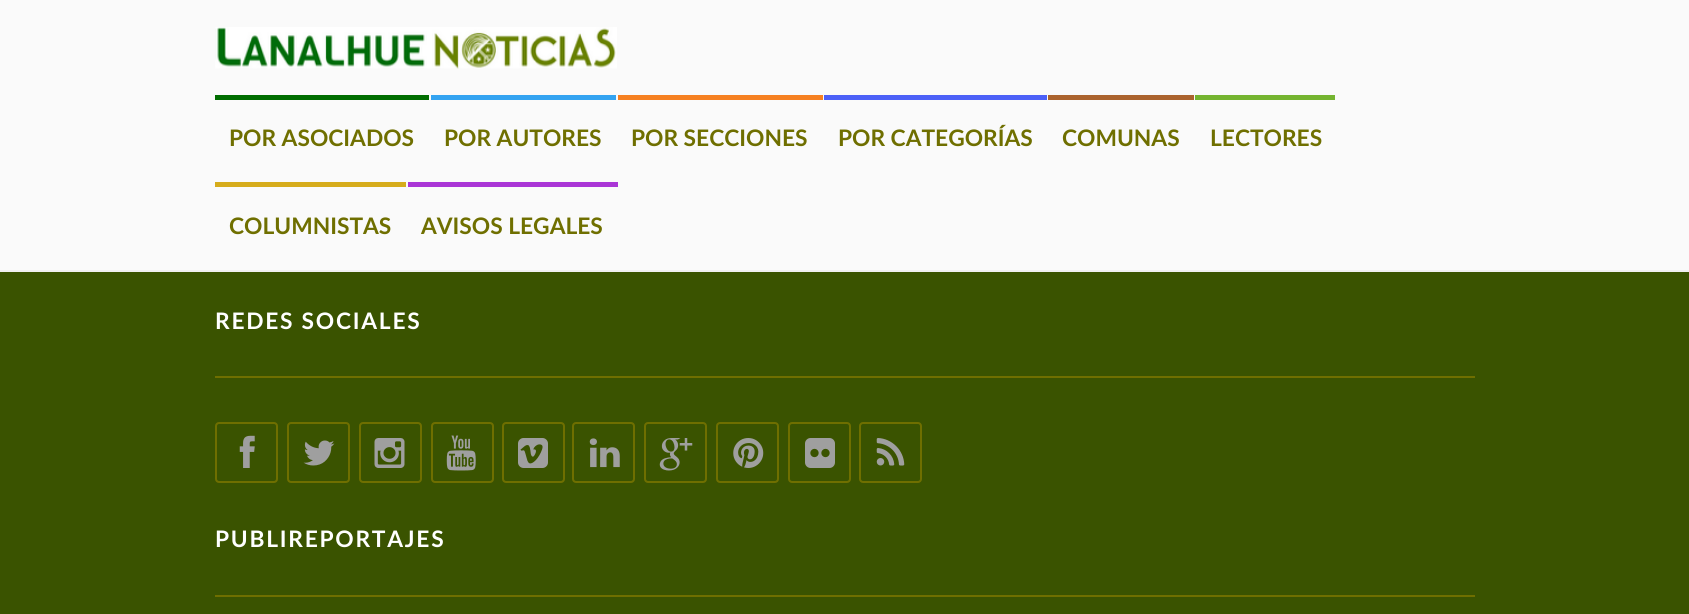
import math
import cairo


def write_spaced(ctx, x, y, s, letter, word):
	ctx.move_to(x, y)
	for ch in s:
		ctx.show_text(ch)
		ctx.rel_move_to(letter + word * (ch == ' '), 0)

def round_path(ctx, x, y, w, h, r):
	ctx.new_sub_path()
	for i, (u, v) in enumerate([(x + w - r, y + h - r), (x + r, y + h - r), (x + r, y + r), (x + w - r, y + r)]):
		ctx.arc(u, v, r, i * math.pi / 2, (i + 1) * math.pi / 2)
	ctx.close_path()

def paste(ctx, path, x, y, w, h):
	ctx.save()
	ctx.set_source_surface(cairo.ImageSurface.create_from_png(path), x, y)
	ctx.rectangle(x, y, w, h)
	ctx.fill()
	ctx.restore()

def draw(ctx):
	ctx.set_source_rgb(0.227, 0.325, 0)
	ctx.paint()
	ctx.set_source_rgb(0.98, 0.98, 0.98)
	ctx.rectangle(0, 0, 1689, 270)
	ctx.fill()
	ctx.set_source_rgb(0.941, 0.941, 0.941)
	ctx.rectangle(0, 270, 1689, 2)
	ctx.fill()
	paste(ctx, 'media/1.png', 215, 27, 402, 42)
	ctx.set_source_rgb(0, 0.427, 0)
	ctx.rectangle(215, 95, 214, 5)
	ctx.fill()
	ctx.select_font_face('Lato', cairo.FONT_SLANT_NORMAL, cairo.FONT_WEIGHT_BOLD)
	ctx.set_font_size(22.75)
	ctx.set_source_rgb(0.435, 0.435, 0)
	ctx.move_to(229, 146)
	ctx.show_text('POR ASOCIADOS')
	ctx.set_source_rgb(0.2, 0.639, 0.945)
	ctx.rectangle(431, 95, 185, 5)
	ctx.fill()
	ctx.set_source_rgb(0.435, 0.435, 0)
	ctx.move_to(444, 146)
	ctx.show_text('POR AUTORES')
	ctx.set_source_rgb(0.961, 0.502, 0.129)
	ctx.rectangle(618, 95, 205, 5)
	ctx.fill()
	ctx.set_source_rgb(0.435, 0.435, 0)
	ctx.move_to(631, 146)
	ctx.show_text('POR SECCIONES')
	ctx.set_source_rgb(0.298, 0.376, 0.965)
	ctx.rectangle(824, 95, 223, 5)
	ctx.fill()
	ctx.set_source_rgb(0.435, 0.435, 0)
	ctx.move_to(838, 146)
	ctx.show_text('POR CATEGORÍAS')
	ctx.set_source_rgb(0.671, 0.388, 0.18)
	ctx.rectangle(1048, 95, 146, 5)
	ctx.fill()
	ctx.set_source_rgb(0.435, 0.435, 0)
	ctx.move_to(1062, 146)
	ctx.show_text('COMUNAS')
	ctx.set_source_rgb(0.455, 0.706, 0.188)
	ctx.rectangle(1195, 95, 140, 5)
	ctx.fill()
	ctx.set_source_rgb(0.435, 0.435, 0)
	ctx.move_to(1210, 146)
	ctx.show_text('LECTORES')
	ctx.set_source_rgb(0.839, 0.675, 0.106)
	ctx.rectangle(215, 182, 191, 5)
	ctx.fill()
	ctx.set_source_rgb(0.435, 0.435, 0)
	ctx.move_to(229, 234)
	ctx.show_text('COLUMNISTAS')
	ctx.set_source_rgb(0.667, 0.208, 0.839)
	ctx.rectangle(408, 182, 210, 5)
	ctx.fill()
	ctx.set_source_rgb(0.435, 0.435, 0)
	ctx.move_to(421, 234)
	ctx.show_text('AVISOS LEGALES')
	ctx.rectangle(215, 376, 1260, 2)
	ctx.fill()
	ctx.set_source_rgb(1, 1, 1)
	write_spaced(ctx, 215, 329, 'REDES SOCIALES', 1.75, 0)
	round_path(ctx, 216, 423, 61, 59, 3)
	ctx.set_source_rgb(0.435, 0.435, 0)
	ctx.stroke()
	paste(ctx, 'media/2.png', 239, 435, 16, 33)
	round_path(ctx, 288, 423, 61, 59, 3)
	ctx.stroke()
	paste(ctx, 'media/3.png', 303, 440, 32, 26)
	round_path(ctx, 360, 423, 61, 59, 3)
	ctx.stroke()
	paste(ctx, 'media/4.png', 374, 438, 31, 30)
	round_path(ctx, 432, 423, 61, 59, 3)
	ctx.stroke()
	paste(ctx, 'media/5.png', 446, 435, 30, 36)
	round_path(ctx, 503, 423, 61, 59, 3)
	ctx.stroke()
	paste(ctx, 'media/6.png', 518, 438, 30, 30)
	round_path(ctx, 573, 423, 61, 59, 3)
	ctx.stroke()
	paste(ctx, 'media/7.png', 589, 438, 31, 30)
	round_path(ctx, 645, 423, 61, 59, 3)
	ctx.stroke()
	paste(ctx, 'media/8.png', 659, 438, 34, 33)
	round_path(ctx, 717, 423, 61, 59, 3)
	ctx.stroke()
	paste(ctx, 'media/9.png', 733, 438, 31, 30)
	round_path(ctx, 789, 423, 61, 59, 3)
	ctx.stroke()
	paste(ctx, 'media/10.png', 805, 438, 30, 30)
	round_path(ctx, 860, 423, 61, 59, 3)
	ctx.stroke()
	paste(ctx, 'media/11.png', 876, 438, 29, 28)
	ctx.rectangle(215, 595, 1260, 2)
	ctx.fill()
	ctx.set_source_rgb(1, 1, 1)
	write_spaced(ctx, 215, 547, 'PUBLIREPORTAJES', 1.75, 0)


surface = cairo.ImageSurface(cairo.FORMAT_RGB24, 1689, 614)
ctx = cairo.Context(surface)
options = cairo.FontOptions()
options.set_hint_metrics(cairo.HINT_METRICS_OFF)
options.set_hint_style(cairo.HINT_STYLE_NONE)
ctx.set_font_options(options)
ctx.set_miter_limit(4)
draw(ctx)
surface.write_to_png('image.png')
